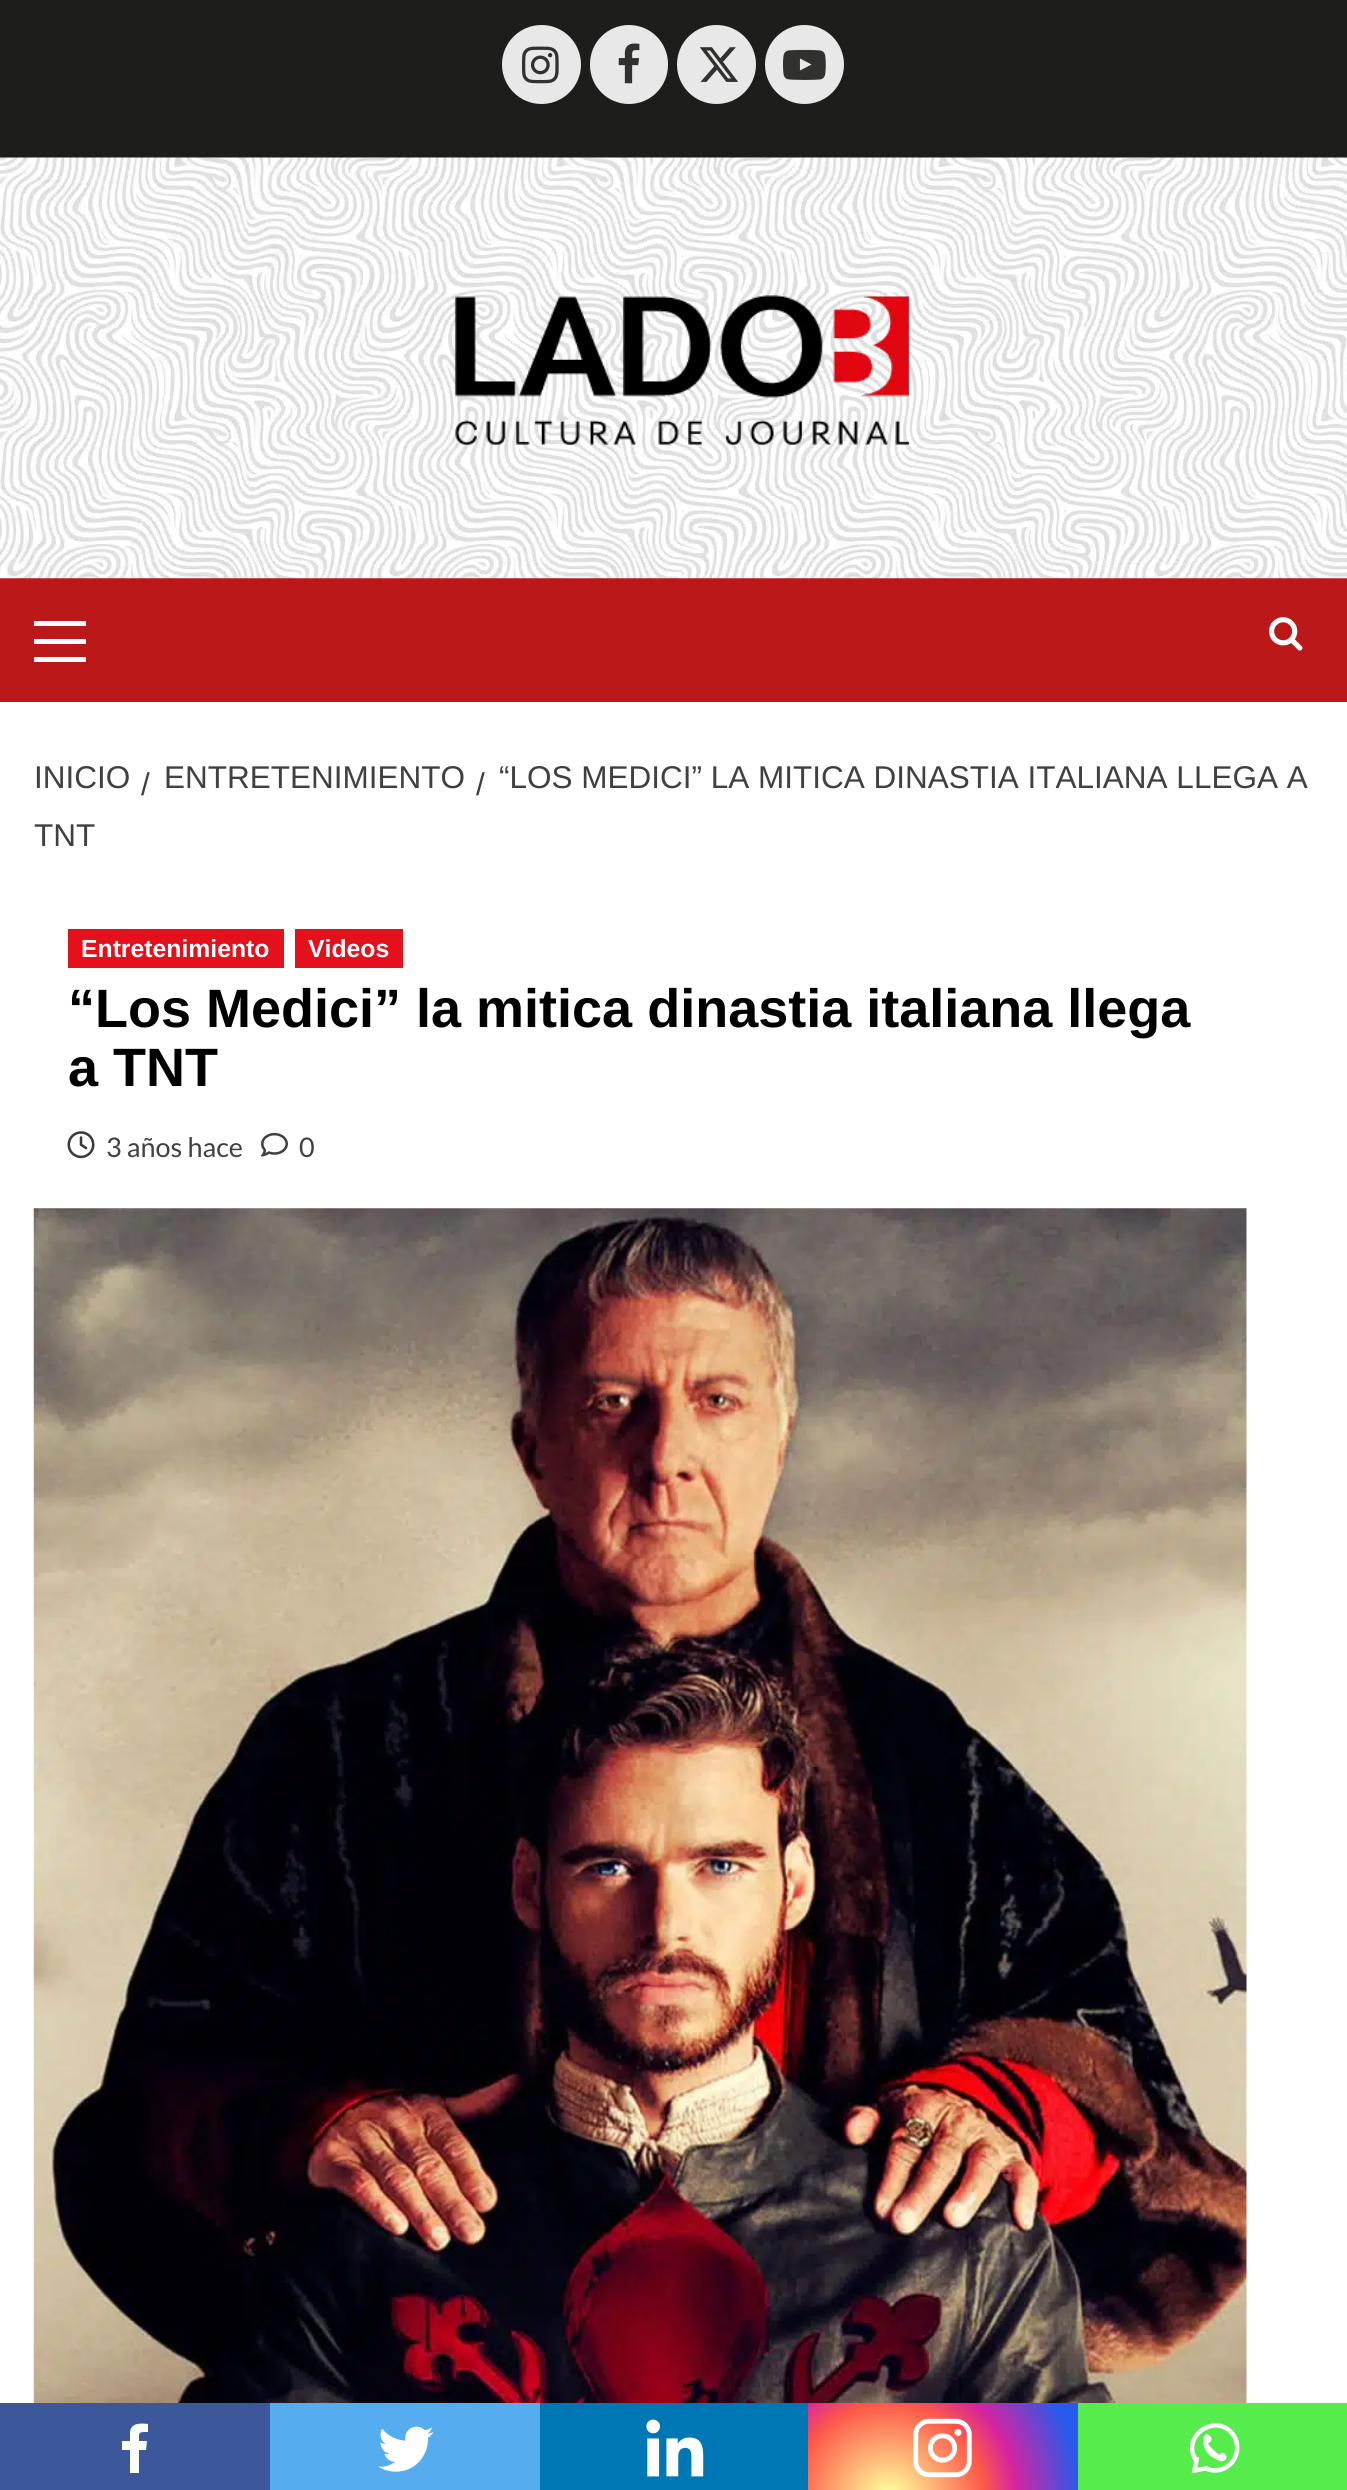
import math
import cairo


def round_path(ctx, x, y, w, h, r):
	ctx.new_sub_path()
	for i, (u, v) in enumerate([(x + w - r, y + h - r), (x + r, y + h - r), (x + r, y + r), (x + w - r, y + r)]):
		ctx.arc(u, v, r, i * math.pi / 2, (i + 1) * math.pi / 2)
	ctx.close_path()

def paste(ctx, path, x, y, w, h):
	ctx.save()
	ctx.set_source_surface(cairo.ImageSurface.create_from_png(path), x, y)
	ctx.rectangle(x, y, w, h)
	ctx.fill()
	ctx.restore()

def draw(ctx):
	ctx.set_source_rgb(1, 1, 1)
	ctx.paint()
	ctx.set_source_rgb(0.114, 0.114, 0.106)
	ctx.rectangle(0, 0, 1347, 158)
	ctx.fill()
	ctx.set_source_rgb(0.91, 0.91, 0.91)
	ctx.arc(541.5, 64.5, 39.5, 0, 2 * math.pi)
	ctx.fill()
	paste(ctx, 'media/1.png', 522, 46, 37, 38)
	round_path(ctx, 590, 25, 78, 79, 39)
	ctx.fill()
	paste(ctx, 'media/2.png', 618, 43, 22, 41)
	ctx.arc(716.5, 64.5, 39.5, 0, 2 * math.pi)
	ctx.fill()
	paste(ctx, 'media/3.png', 699, 47, 39, 35)
	ctx.arc(804.5, 64.5, 39.5, 0, 2 * math.pi)
	ctx.fill()
	paste(ctx, 'media/4.png', 783, 49, 43, 31)
	ctx.set_source_rgb(0.733, 0.098, 0.098)
	ctx.rectangle(0, 578, 1347, 124)
	ctx.fill()
	paste(ctx, 'media/5.png', 0, 157, 1347, 422)
	paste(ctx, 'media/6.png', 454, 295, 456, 150)
	ctx.set_source_rgb(1, 1, 1)
	ctx.rectangle(34, 639, 52, 5)
	ctx.rectangle(34, 621, 52, 5)
	ctx.rectangle(34, 657, 52, 5)
	ctx.fill()
	paste(ctx, 'media/7.png', 1269, 617, 34, 34)
	ctx.select_font_face('Liberation Sans')
	ctx.set_font_size(31.5)
	ctx.set_source_rgb(0.251, 0.251, 0.251)
	for x, y, s in [
		(476, 795, '/'),
		(499, 788, '“LOS MEDICI” LA MITICA DINASTIA ITALIANA LLEGA A'),
		(34, 846, 'TNT'),
		(34, 788, 'INICIO'),
		(141, 795, '/'),
		(164, 788, 'ENTRETENIMIENTO'),
	]:
		ctx.move_to(x, y)
		ctx.show_text(s)
	ctx.set_source_rgb(0.894, 0.063, 0.11)
	ctx.rectangle(68, 929, 216, 39)
	ctx.fill()
	ctx.select_font_face('Liberation Sans', cairo.FONT_SLANT_NORMAL, cairo.FONT_WEIGHT_BOLD)
	ctx.set_font_size(24.75)
	ctx.set_source_rgb(1, 1, 1)
	ctx.move_to(81, 957)
	ctx.show_text('Entretenimiento')
	ctx.set_source_rgb(0.894, 0.063, 0.11)
	ctx.rectangle(295, 929, 108, 39)
	ctx.fill()
	ctx.set_source_rgb(1, 1, 1)
	ctx.move_to(308, 957)
	ctx.show_text('Videos')
	ctx.set_font_size(54)
	ctx.set_source_rgb(0, 0, 0)
	ctx.move_to(68, 1027)
	ctx.show_text('“Los Medici” la mitica dinastia italiana llega')
	ctx.move_to(68, 1086)
	ctx.show_text('a TNT')
	paste(ctx, 'media/8.png', 67, 1131, 28, 28)
	ctx.select_font_face('Lato')
	ctx.set_font_size(27)
	ctx.set_source_rgb(0.251, 0.251, 0.251)
	ctx.move_to(106, 1157)
	ctx.show_text('3 años hace')
	paste(ctx, 'media/9.png', 261, 1132, 27, 25)
	ctx.move_to(299, 1157)
	ctx.show_text('0')
	paste(ctx, 'media/10.png', 33, 1208, 1214, 1195)
	ctx.set_source_rgb(0.235, 0.345, 0.604)
	ctx.rectangle(0, 2403, 270, 87)
	ctx.fill()
	ctx.set_source_rgb(1, 1, 1)
	ctx.new_path()
	ctx.move_to(139, 2473)
	ctx.line_to(139, 2450)
	ctx.line_to(146, 2450)
	ctx.line_to(147, 2441)
	ctx.line_to(139, 2441)
	ctx.curve_to(139, 2432, 138, 2432, 148, 2432)
	ctx.line_to(148, 2424)
	ctx.curve_to(140, 2423, 131, 2423, 130, 2432)
	ctx.line_to(130, 2441)
	ctx.line_to(122, 2441)
	ctx.line_to(122, 2450)
	ctx.line_to(130, 2450)
	ctx.line_to(130, 2473)
	ctx.close_path()
	ctx.fill()
	ctx.set_source_rgb(0.333, 0.675, 0.933)
	ctx.rectangle(270, 2403, 270, 87)
	ctx.fill()
	paste(ctx, 'media/11.png', 378, 2426, 56, 46)
	ctx.set_source_rgb(0, 0.467, 0.71)
	ctx.rectangle(540, 2403, 268, 87)
	ctx.fill()
	paste(ctx, 'media/12.png', 646, 2419, 58, 58)
	gradient = cairo.RadialGradient(889, 2499, 0, 889, 2499, 212)
	gradient.add_color_stop_rgba(0, 0.992, 0.957, 0.592, 1)
	gradient.add_color_stop_rgba(0.05, 0.992, 0.957, 0.592, 1)
	gradient.add_color_stop_rgba(0.45, 0.992, 0.349, 0.286, 1)
	gradient.add_color_stop_rgba(0.6, 0.839, 0.141, 0.624, 1)
	gradient.add_color_stop_rgba(0.9, 0.157, 0.353, 0.922, 1)
	ctx.set_source(gradient)
	ctx.rectangle(808, 2403, 270, 87)
	ctx.fill()
	paste(ctx, 'media/13.png', 913, 2418, 59, 60)
	ctx.set_source_rgb(0.333, 0.922, 0.298)
	ctx.rectangle(1078, 2403, 269, 87)
	ctx.fill()
	ctx.new_path()
	ctx.move_to(1207, 2469)
	ctx.curve_to(1219, 2473.5, 1232, 2467, 1236, 2455)
	ctx.curve_to(1238, 2449, 1237.5, 2441.5, 1234, 2436)
	ctx.curve_to(1218, 2410.5, 1179, 2436, 1196.5, 2461)
	ctx.move_to(1197, 2457)
	ctx.line_to(1194.5, 2470.5)
	ctx.line_to(1208, 2468)
	ctx.set_source_rgb(1, 1, 1)
	ctx.set_line_width(4.5)
	ctx.stroke()
	ctx.new_path()
	ctx.move_to(1203.5, 2437)
	ctx.curve_to(1202, 2449, 1208, 2457, 1221.5, 2461.5)
	ctx.curve_to(1233, 2459, 1221.5, 2448, 1219.5, 2455)
	ctx.curve_to(1213.5, 2450, 1209.5, 2446.5, 1208, 2443.5)
	ctx.curve_to(1217, 2439, 1206, 2432, 1206, 2434.5)
	ctx.fill()


surface = cairo.ImageSurface(cairo.FORMAT_RGB24, 1347, 2490)
ctx = cairo.Context(surface)
options = cairo.FontOptions()
options.set_hint_metrics(cairo.HINT_METRICS_OFF)
options.set_hint_style(cairo.HINT_STYLE_NONE)
ctx.set_font_options(options)
ctx.set_miter_limit(4)
draw(ctx)
surface.write_to_png('image.png')
